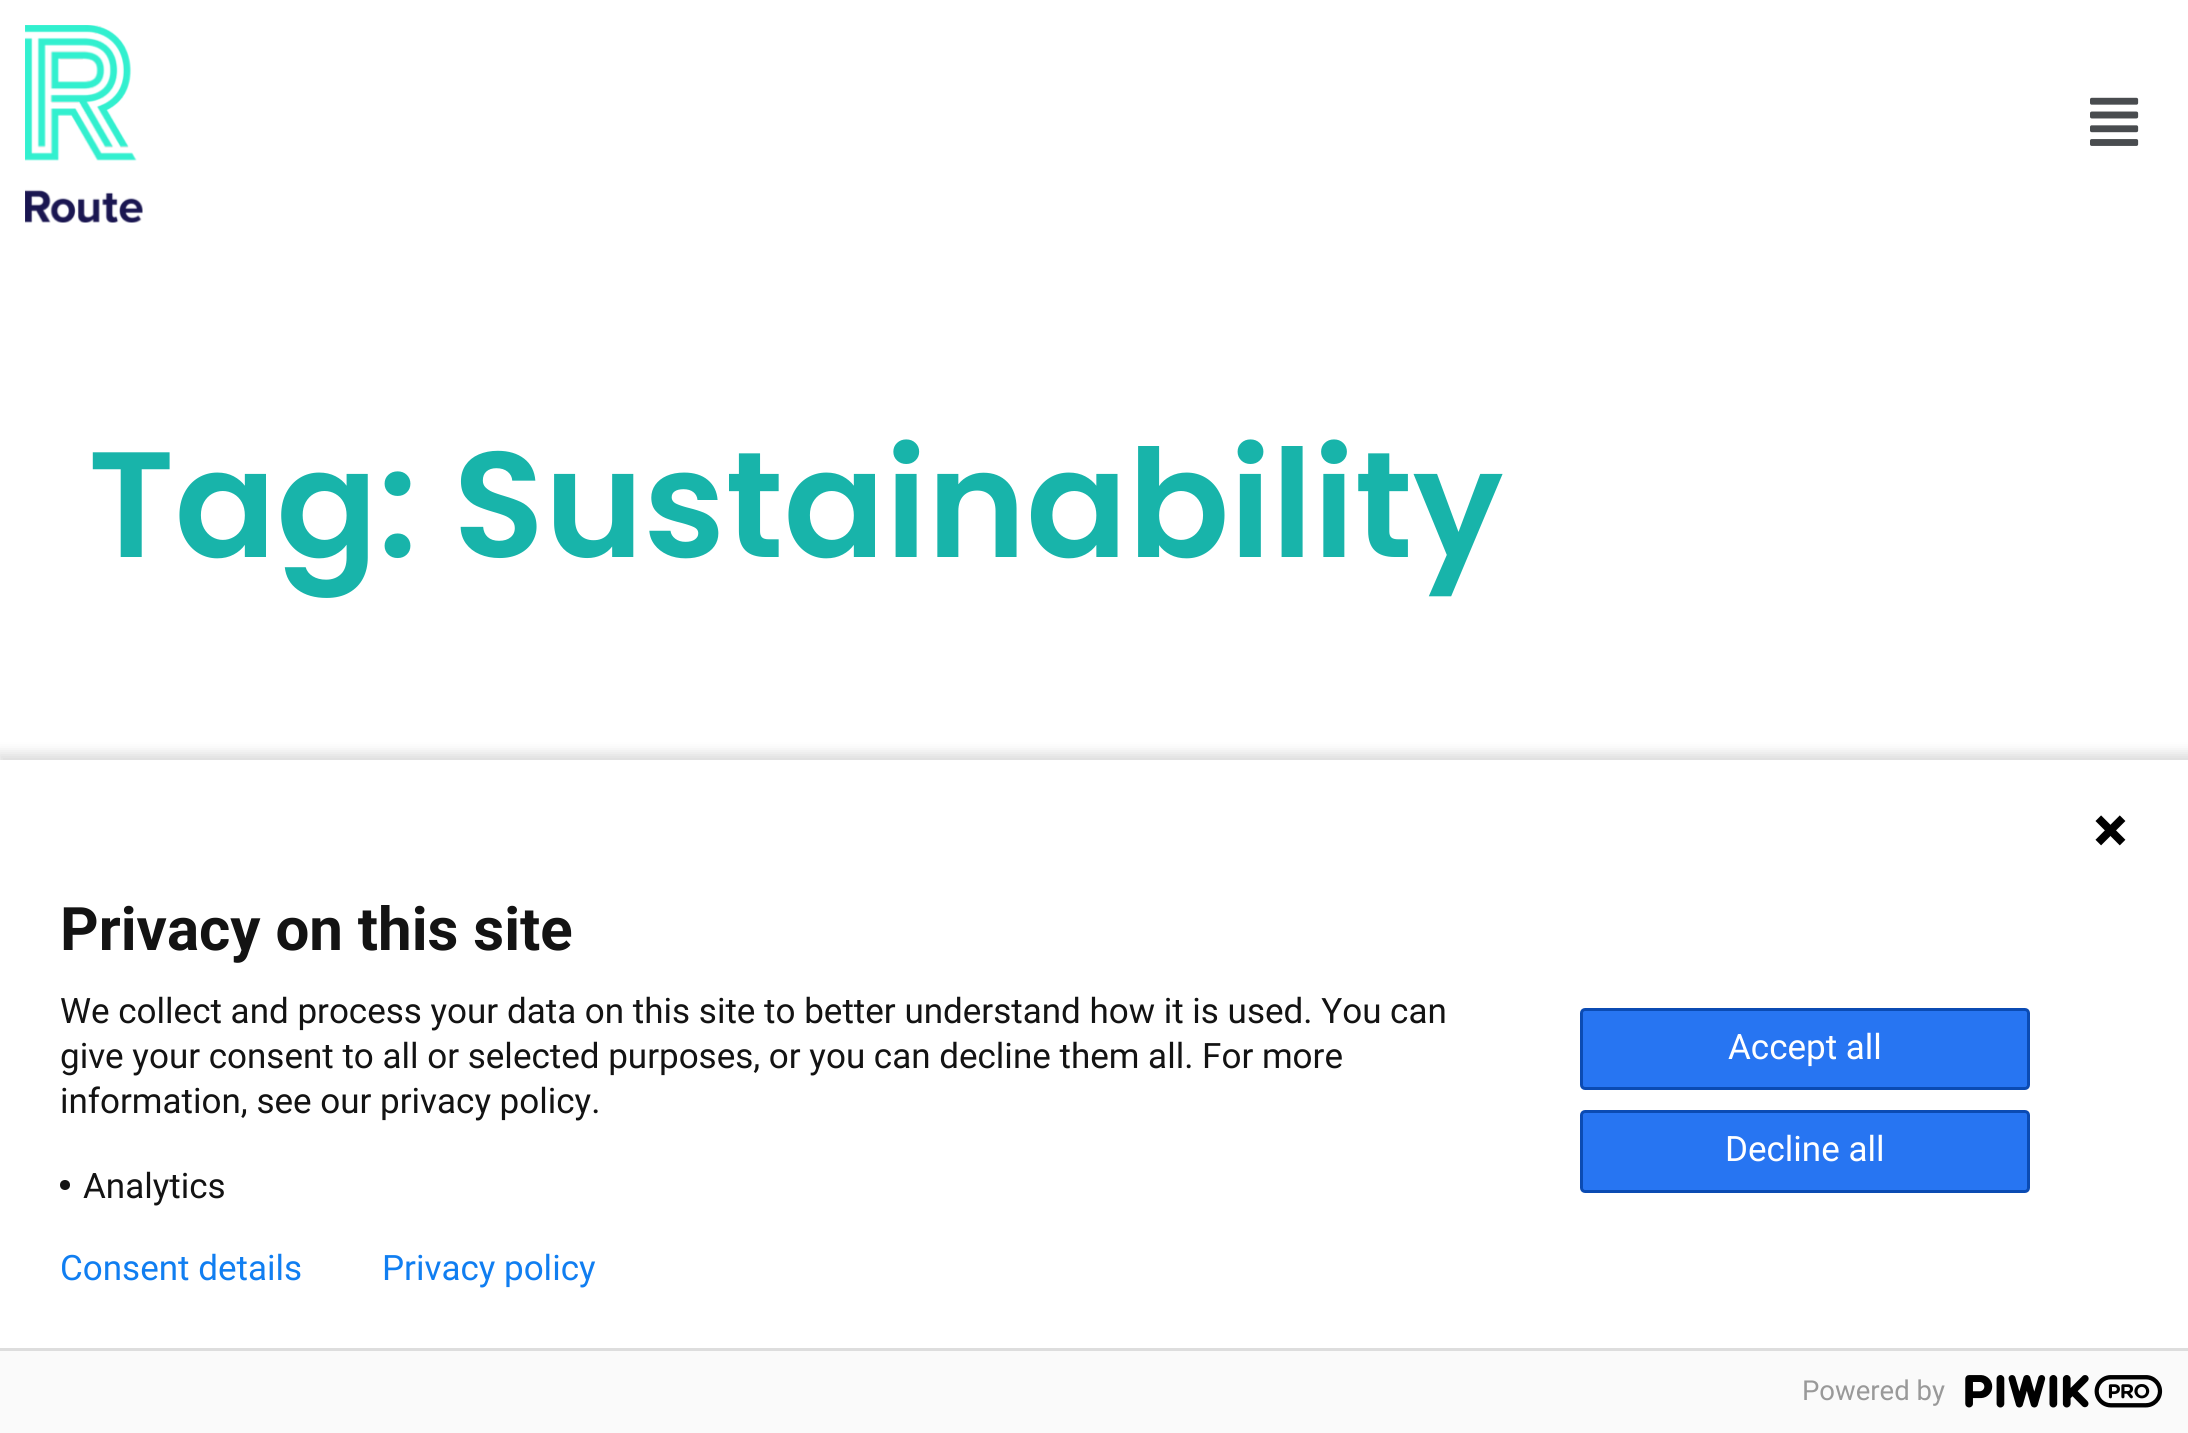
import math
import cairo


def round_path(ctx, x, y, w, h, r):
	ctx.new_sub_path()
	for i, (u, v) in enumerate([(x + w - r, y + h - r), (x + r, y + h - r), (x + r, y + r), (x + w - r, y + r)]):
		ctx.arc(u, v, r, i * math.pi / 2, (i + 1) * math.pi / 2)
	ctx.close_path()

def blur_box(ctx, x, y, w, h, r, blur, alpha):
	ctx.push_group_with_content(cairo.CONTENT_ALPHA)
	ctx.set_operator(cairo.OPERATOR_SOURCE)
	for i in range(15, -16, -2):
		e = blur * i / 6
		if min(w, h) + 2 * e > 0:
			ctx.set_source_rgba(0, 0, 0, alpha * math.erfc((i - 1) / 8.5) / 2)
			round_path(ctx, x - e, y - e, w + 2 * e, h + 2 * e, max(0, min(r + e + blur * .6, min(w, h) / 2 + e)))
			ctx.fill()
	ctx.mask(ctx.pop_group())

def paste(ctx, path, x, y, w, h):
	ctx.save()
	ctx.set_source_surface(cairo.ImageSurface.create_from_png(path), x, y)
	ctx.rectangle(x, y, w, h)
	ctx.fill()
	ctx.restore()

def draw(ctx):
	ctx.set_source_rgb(1, 1, 1)
	ctx.paint()
	paste(ctx, 'media/1.png', 25, 25, 118, 198)
	paste(ctx, 'media/2.png', 2090, 97, 49, 49)
	ctx.select_font_face('Poppins SemiBold')
	ctx.set_font_size(150)
	ctx.set_source_rgb(0.094, 0.706, 0.667)
	ctx.move_to(88, 557)
	ctx.show_text('Tag: Sustainability')
	ctx.set_source_rgb(0, 0, 0)
	blur_box(ctx, -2, 753, 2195, 680, 0, 6, 0.14)
	ctx.set_source_rgb(1, 1, 1)
	ctx.rectangle(0, 760, 2188, 588)
	ctx.fill()
	paste(ctx, 'media/3.png', 2095, 815, 31, 31)
	ctx.select_font_face('Roboto', cairo.FONT_SLANT_NORMAL, cairo.FONT_WEIGHT_BOLD)
	ctx.set_font_size(60)
	ctx.set_source_rgb(0.075, 0.075, 0.075)
	ctx.move_to(60, 950)
	ctx.show_text('Privacy on this site')
	ctx.select_font_face('Roboto')
	ctx.set_font_size(35)
	for x, y, s in [
		(60, 1023, 'We collect and process your data on this site to better understand how it is used. You can'),
		(60, 1068, 'give your consent to all or selected purposes, or you can decline them all. For more'),
		(60, 1113, 'information, see our privacy policy.'),
	]:
		ctx.move_to(x, y)
		ctx.show_text(s)
	ctx.new_path()
	ctx.arc(65, 1185, 5, 0, 2 * math.pi)
	ctx.fill()
	ctx.move_to(83, 1198)
	ctx.show_text('Analytics')
	ctx.set_source_rgb(0.153, 0.459, 0.949)
	round_path(ctx, 1581.5, 1009.5, 447, 79, 3.5)
	ctx.fill_preserve()
	ctx.set_source_rgb(0.043, 0.294, 0.702)
	ctx.set_line_width(3)
	ctx.stroke()
	ctx.set_source_rgb(1, 1, 1)
	ctx.move_to(1728, 1059)
	ctx.show_text('Accept all')
	ctx.set_source_rgb(0.153, 0.459, 0.949)
	round_path(ctx, 1581.5, 1111.5, 447, 80, 3.5)
	ctx.fill_preserve()
	ctx.set_source_rgb(0.043, 0.294, 0.702)
	ctx.stroke()
	ctx.set_source_rgb(1, 1, 1)
	ctx.move_to(1725, 1161)
	ctx.show_text('Decline all')
	ctx.set_source_rgb(0.063, 0.494, 0.945)
	ctx.move_to(60, 1280)
	ctx.show_text('Consent details')
	ctx.move_to(382, 1280)
	ctx.show_text('Privacy policy')
	ctx.set_source_rgb(0.98, 0.98, 0.98)
	ctx.rectangle(0, 1351, 2188, 82)
	ctx.fill()
	ctx.set_source_rgb(0.867, 0.867, 0.867)
	ctx.rectangle(0, 1348, 2188, 3)
	ctx.fill()
	ctx.set_font_size(27.5)
	ctx.set_source_rgb(0.6, 0.6, 0.6)
	ctx.move_to(1802, 1400)
	ctx.show_text('Powered by')
	paste(ctx, 'media/4.png', 1965, 1375, 198, 33)


surface = cairo.ImageSurface(cairo.FORMAT_RGB24, 2188, 1433)
ctx = cairo.Context(surface)
options = cairo.FontOptions()
options.set_hint_metrics(cairo.HINT_METRICS_OFF)
options.set_hint_style(cairo.HINT_STYLE_NONE)
ctx.set_font_options(options)
ctx.set_miter_limit(4)
draw(ctx)
surface.write_to_png('image.png')
